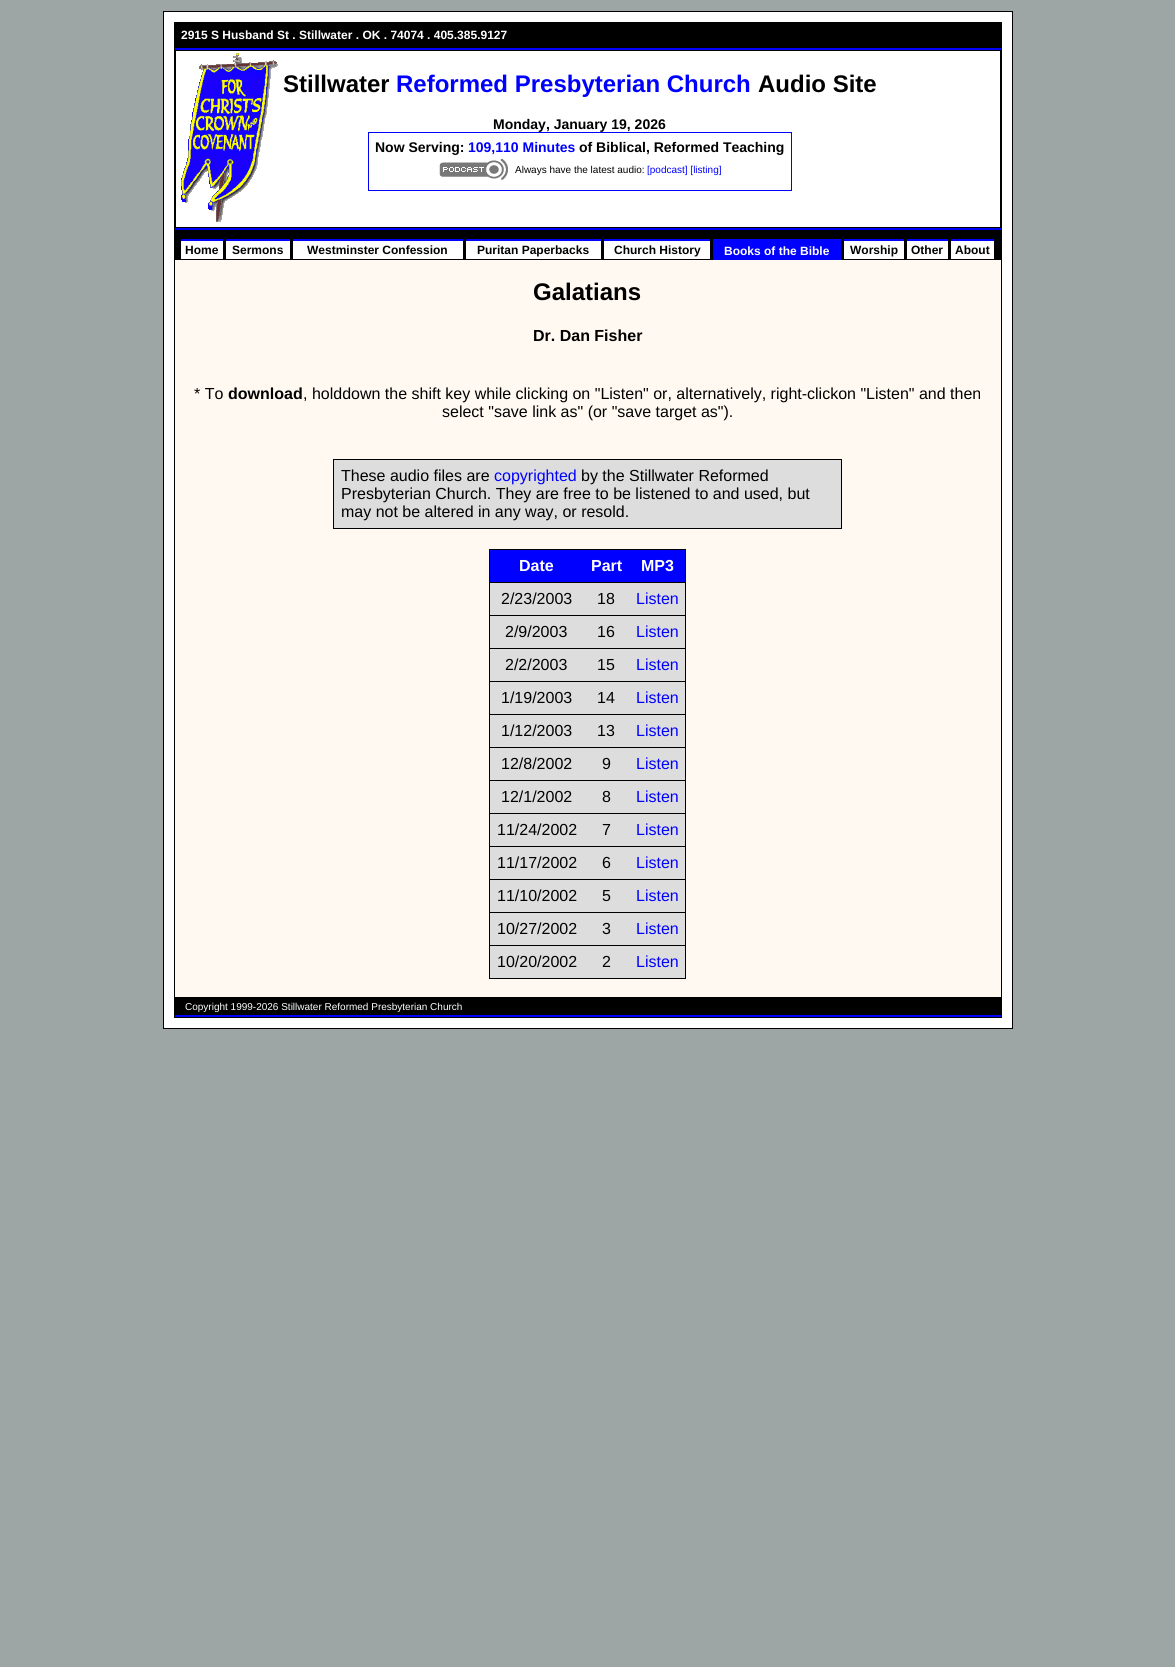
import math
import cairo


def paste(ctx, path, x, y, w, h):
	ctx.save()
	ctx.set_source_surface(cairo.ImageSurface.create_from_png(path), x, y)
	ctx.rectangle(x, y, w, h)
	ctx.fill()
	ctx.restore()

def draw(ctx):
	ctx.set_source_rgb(0.616, 0.647, 0.647)
	ctx.paint()
	ctx.rectangle(163.5, 11.5, 849, 1017)
	ctx.set_source_rgb(0, 0, 0)
	ctx.set_line_width(1)
	ctx.stroke()
	ctx.set_source_rgb(1, 1, 1)
	ctx.rectangle(164, 12, 848, 1016)
	ctx.fill()
	ctx.set_source_rgb(0, 0, 0)
	ctx.rectangle(1001, 22, 1, 216)
	ctx.rectangle(174, 22, 1, 216)
	ctx.rectangle(175, 22, 826, 26)
	ctx.fill()
	ctx.select_font_face('Liberation Sans', cairo.FONT_SLANT_NORMAL, cairo.FONT_WEIGHT_BOLD)
	ctx.set_font_size(12)
	ctx.set_source_rgb(1, 1, 1)
	ctx.move_to(181, 39)
	ctx.show_text('2915 S Husband St . Stillwater . OK . 74074 . 405.385.9127')
	ctx.set_source_rgb(0, 0, 1)
	ctx.rectangle(175, 48, 826, 2)
	ctx.fill()
	ctx.set_source_rgb(0, 0, 0)
	ctx.rectangle(175, 50, 826, 1)
	ctx.rectangle(1000, 51, 1, 176)
	ctx.rectangle(175, 51, 1, 176)
	ctx.fill()
	paste(ctx, 'media/1.png', 181, 53, 97, 169)
	ctx.set_font_size(24)
	ctx.move_to(283, 92)
	ctx.show_text('Stillwater')
	ctx.set_source_rgb(0, 0, 1)
	ctx.move_to(396, 92)
	ctx.show_text('Reformed Presbyterian Church')
	ctx.set_source_rgb(0, 0, 0)
	ctx.move_to(758, 92)
	ctx.show_text('Audio Site')
	ctx.set_font_size(14)
	ctx.move_to(493, 129)
	ctx.show_text('Monday, January 19, 2026')
	ctx.rectangle(368.5, 132.5, 423, 58)
	ctx.set_source_rgb(0, 0, 1)
	ctx.stroke()
	ctx.set_source_rgb(0, 0, 0)
	ctx.move_to(375, 152)
	ctx.show_text('Now Serving:')
	ctx.set_source_rgb(0, 0, 1)
	ctx.move_to(468, 152)
	ctx.show_text('109,110 Minutes')
	ctx.set_source_rgb(0, 0, 0)
	ctx.move_to(579, 152)
	ctx.show_text('of Biblical, Reformed Teaching')
	paste(ctx, 'media/2.png', 439, 159, 69, 21)
	ctx.select_font_face('Liberation Sans')
	ctx.set_font_size(10)
	ctx.move_to(515, 173)
	ctx.show_text('Always have the latest audio:')
	ctx.set_source_rgb(0, 0, 1)
	ctx.move_to(647, 173)
	ctx.show_text('[podcast] [listing]')
	ctx.set_source_rgb(0, 0, 0)
	ctx.rectangle(175, 227, 826, 1)
	ctx.fill()
	ctx.set_source_rgb(0, 0, 1)
	ctx.rectangle(175, 228, 826, 2)
	ctx.fill()
	ctx.set_source_rgb(0, 0, 0)
	ctx.rectangle(175, 230, 826, 8)
	ctx.rectangle(174, 238, 828, 780)
	ctx.fill()
	ctx.set_source_rgb(0, 0, 1)
	ctx.rectangle(180, 239, 44, 2)
	ctx.fill()
	ctx.set_source_rgb(0, 0, 0)
	ctx.rectangle(223, 238, 1, 3)
	ctx.rectangle(180, 238, 1, 3)
	ctx.fill()
	ctx.set_source_rgb(0, 0, 1)
	ctx.rectangle(225, 239, 66, 2)
	ctx.fill()
	ctx.set_source_rgb(0, 0, 0)
	ctx.rectangle(290, 238, 1, 3)
	ctx.rectangle(225, 238, 1, 3)
	ctx.fill()
	ctx.set_source_rgb(0, 0, 1)
	ctx.rectangle(292, 239, 172, 2)
	ctx.fill()
	ctx.set_source_rgb(0, 0, 0)
	ctx.rectangle(463, 238, 1, 3)
	ctx.rectangle(292, 238, 1, 3)
	ctx.fill()
	ctx.set_source_rgb(0, 0, 1)
	ctx.rectangle(465, 239, 137, 2)
	ctx.fill()
	ctx.set_source_rgb(0, 0, 0)
	ctx.rectangle(601, 238, 1, 3)
	ctx.rectangle(465, 238, 1, 3)
	ctx.fill()
	ctx.set_source_rgb(0, 0, 1)
	ctx.rectangle(603, 239, 108, 2)
	ctx.fill()
	ctx.set_source_rgb(0, 0, 0)
	ctx.rectangle(710, 238, 1, 3)
	ctx.rectangle(603, 238, 1, 3)
	ctx.fill()
	ctx.set_source_rgb(0, 0, 1)
	ctx.rectangle(712, 239, 130, 2)
	ctx.fill()
	ctx.set_source_rgb(0, 0, 0)
	ctx.rectangle(841, 238, 1, 3)
	ctx.rectangle(712, 238, 1, 3)
	ctx.fill()
	ctx.set_source_rgb(0, 0, 1)
	ctx.rectangle(843, 239, 62, 2)
	ctx.fill()
	ctx.set_source_rgb(0, 0, 0)
	ctx.rectangle(904, 238, 1, 3)
	ctx.rectangle(843, 238, 1, 3)
	ctx.fill()
	ctx.set_source_rgb(0, 0, 1)
	ctx.rectangle(906, 239, 43, 2)
	ctx.fill()
	ctx.set_source_rgb(0, 0, 0)
	ctx.rectangle(948, 238, 1, 3)
	ctx.rectangle(906, 238, 1, 3)
	ctx.fill()
	ctx.set_source_rgb(0, 0, 1)
	ctx.rectangle(950, 239, 45, 2)
	ctx.fill()
	ctx.set_source_rgb(0, 0, 0)
	ctx.rectangle(994, 238, 1, 3)
	ctx.rectangle(950, 238, 1, 3)
	ctx.fill()
	ctx.set_source_rgb(1, 1, 1)
	ctx.rectangle(181, 241, 42, 18)
	ctx.fill()
	ctx.select_font_face('Liberation Sans', cairo.FONT_SLANT_NORMAL, cairo.FONT_WEIGHT_BOLD)
	ctx.set_font_size(12)
	ctx.set_source_rgb(0, 0, 0)
	ctx.move_to(185, 254)
	ctx.show_text('Home')
	ctx.set_source_rgb(1, 1, 1)
	ctx.rectangle(226, 241, 64, 18)
	ctx.fill()
	ctx.set_source_rgb(0, 0, 0)
	ctx.move_to(232, 254)
	ctx.show_text('Sermons')
	ctx.set_source_rgb(1, 1, 1)
	ctx.rectangle(293, 241, 170, 18)
	ctx.fill()
	ctx.set_source_rgb(0, 0, 0)
	ctx.move_to(307, 254)
	ctx.show_text('Westminster Confession')
	ctx.set_source_rgb(1, 1, 1)
	ctx.rectangle(466, 241, 135, 18)
	ctx.fill()
	ctx.set_source_rgb(0, 0, 0)
	ctx.move_to(477, 254)
	ctx.show_text('Puritan Paperbacks')
	ctx.set_source_rgb(1, 1, 1)
	ctx.rectangle(604, 241, 106, 18)
	ctx.fill()
	ctx.set_source_rgb(0, 0, 0)
	ctx.move_to(614, 254)
	ctx.show_text('Church History')
	ctx.set_source_rgb(0, 0, 1)
	ctx.rectangle(713, 241, 128, 19)
	ctx.fill()
	ctx.set_source_rgb(1, 1, 1)
	ctx.move_to(724, 255)
	ctx.show_text('Books of the Bible')
	ctx.rectangle(844, 241, 60, 18)
	ctx.fill()
	ctx.set_source_rgb(0, 0, 0)
	ctx.move_to(850, 254)
	ctx.show_text('Worship')
	ctx.set_source_rgb(1, 1, 1)
	ctx.rectangle(907, 241, 41, 18)
	ctx.fill()
	ctx.set_source_rgb(0, 0, 0)
	ctx.move_to(911, 254)
	ctx.show_text('Other')
	ctx.set_source_rgb(1, 1, 1)
	ctx.rectangle(951, 241, 43, 18)
	ctx.fill()
	ctx.set_source_rgb(0, 0, 0)
	ctx.move_to(955, 254)
	ctx.show_text('About')
	ctx.set_source_rgb(1, 0.976, 0.949)
	ctx.rectangle(175, 260, 826, 737)
	ctx.fill()
	ctx.set_font_size(24)
	ctx.set_source_rgb(0, 0, 0)
	ctx.move_to(533, 300)
	ctx.show_text('Galatians')
	ctx.set_font_size(16)
	ctx.move_to(533, 341)
	ctx.show_text('Dr. Dan Fisher')
	ctx.select_font_face('Liberation Sans')
	ctx.move_to(194, 399)
	ctx.show_text('* To')
	ctx.select_font_face('Liberation Sans', cairo.FONT_SLANT_NORMAL, cairo.FONT_WEIGHT_BOLD)
	ctx.move_to(228, 399)
	ctx.show_text('download')
	ctx.select_font_face('Liberation Sans')
	ctx.move_to(303, 399)
	ctx.show_text(', holddown the shift key while clicking on "Listen" or, alternatively, right-clickon "Listen" and then')
	ctx.move_to(442, 417)
	ctx.show_text('select "save link as" (or "save target as").')
	ctx.set_source_rgb(0.867, 0.867, 0.867)
	ctx.rectangle(333.5, 459.5, 508, 69)
	ctx.fill_preserve()
	ctx.set_source_rgb(0, 0, 0)
	ctx.stroke()
	ctx.move_to(341, 481)
	ctx.show_text('These audio files are')
	ctx.set_source_rgb(0, 0, 1)
	ctx.move_to(494, 481)
	ctx.show_text('copyrighted')
	ctx.set_source_rgb(0, 0, 0)
	for x, y, s in [
		(581, 481, 'by the Stillwater Reformed'),
		(341, 499, 'Presbyterian Church. They are free to be listened to and used, but'),
		(341, 517, 'may not be altered in any way, or resold.'),
	]:
		ctx.move_to(x, y)
		ctx.show_text(s)
	ctx.rectangle(489.5, 549.5, 196, 429)
	ctx.stroke()
	ctx.set_source_rgb(0, 0, 1)
	ctx.rectangle(490, 550, 195, 32)
	ctx.fill()
	ctx.select_font_face('Liberation Sans', cairo.FONT_SLANT_NORMAL, cairo.FONT_WEIGHT_BOLD)
	ctx.set_source_rgb(1, 1, 1)
	for x, y, s in [
		(519, 571, 'Date'),
		(591, 571, 'Part'),
		(641, 571, 'MP3'),
	]:
		ctx.move_to(x, y)
		ctx.show_text(s)
	ctx.set_source_rgb(0.867, 0.867, 0.867)
	ctx.rectangle(490, 583, 195, 32)
	ctx.fill()
	ctx.set_source_rgb(0, 0, 0)
	ctx.rectangle(490, 582, 195, 1)
	ctx.fill()
	ctx.select_font_face('Liberation Sans')
	ctx.move_to(501, 604)
	ctx.show_text('2/23/2003')
	ctx.move_to(597, 604)
	ctx.show_text('18')
	ctx.set_source_rgb(0, 0, 1)
	ctx.move_to(636, 604)
	ctx.show_text('Listen')
	ctx.set_source_rgb(0.867, 0.867, 0.867)
	ctx.rectangle(490, 616, 195, 32)
	ctx.fill()
	ctx.set_source_rgb(0, 0, 0)
	ctx.rectangle(490, 615, 195, 1)
	ctx.fill()
	ctx.move_to(505, 637)
	ctx.show_text('2/9/2003')
	ctx.move_to(597, 637)
	ctx.show_text('16')
	ctx.set_source_rgb(0, 0, 1)
	ctx.move_to(636, 637)
	ctx.show_text('Listen')
	ctx.set_source_rgb(0.867, 0.867, 0.867)
	ctx.rectangle(490, 649, 195, 32)
	ctx.fill()
	ctx.set_source_rgb(0, 0, 0)
	ctx.rectangle(490, 648, 195, 1)
	ctx.fill()
	ctx.move_to(505, 670)
	ctx.show_text('2/2/2003')
	ctx.move_to(597, 670)
	ctx.show_text('15')
	ctx.set_source_rgb(0, 0, 1)
	ctx.move_to(636, 670)
	ctx.show_text('Listen')
	ctx.set_source_rgb(0.867, 0.867, 0.867)
	ctx.rectangle(490, 682, 195, 32)
	ctx.fill()
	ctx.set_source_rgb(0, 0, 0)
	ctx.rectangle(490, 681, 195, 1)
	ctx.fill()
	ctx.move_to(501, 703)
	ctx.show_text('1/19/2003')
	ctx.move_to(597, 703)
	ctx.show_text('14')
	ctx.set_source_rgb(0, 0, 1)
	ctx.move_to(636, 703)
	ctx.show_text('Listen')
	ctx.set_source_rgb(0.867, 0.867, 0.867)
	ctx.rectangle(490, 715, 195, 32)
	ctx.fill()
	ctx.set_source_rgb(0, 0, 0)
	ctx.rectangle(490, 714, 195, 1)
	ctx.fill()
	ctx.move_to(501, 736)
	ctx.show_text('1/12/2003')
	ctx.move_to(597, 736)
	ctx.show_text('13')
	ctx.set_source_rgb(0, 0, 1)
	ctx.move_to(636, 736)
	ctx.show_text('Listen')
	ctx.set_source_rgb(0.867, 0.867, 0.867)
	ctx.rectangle(490, 748, 195, 32)
	ctx.fill()
	ctx.set_source_rgb(0, 0, 0)
	ctx.rectangle(490, 747, 195, 1)
	ctx.fill()
	ctx.move_to(501, 769)
	ctx.show_text('12/8/2002')
	ctx.move_to(602, 769)
	ctx.show_text('9')
	ctx.set_source_rgb(0, 0, 1)
	ctx.move_to(636, 769)
	ctx.show_text('Listen')
	ctx.set_source_rgb(0.867, 0.867, 0.867)
	ctx.rectangle(490, 781, 195, 32)
	ctx.fill()
	ctx.set_source_rgb(0, 0, 0)
	ctx.rectangle(490, 780, 195, 1)
	ctx.fill()
	ctx.move_to(501, 802)
	ctx.show_text('12/1/2002')
	ctx.move_to(602, 802)
	ctx.show_text('8')
	ctx.set_source_rgb(0, 0, 1)
	ctx.move_to(636, 802)
	ctx.show_text('Listen')
	ctx.set_source_rgb(0.867, 0.867, 0.867)
	ctx.rectangle(490, 814, 195, 32)
	ctx.fill()
	ctx.set_source_rgb(0, 0, 0)
	ctx.rectangle(490, 813, 195, 1)
	ctx.fill()
	ctx.move_to(497, 835)
	ctx.show_text('11/24/2002')
	ctx.move_to(602, 835)
	ctx.show_text('7')
	ctx.set_source_rgb(0, 0, 1)
	ctx.move_to(636, 835)
	ctx.show_text('Listen')
	ctx.set_source_rgb(0.867, 0.867, 0.867)
	ctx.rectangle(490, 847, 195, 32)
	ctx.fill()
	ctx.set_source_rgb(0, 0, 0)
	ctx.rectangle(490, 846, 195, 1)
	ctx.fill()
	ctx.move_to(497, 868)
	ctx.show_text('11/17/2002')
	ctx.move_to(602, 868)
	ctx.show_text('6')
	ctx.set_source_rgb(0, 0, 1)
	ctx.move_to(636, 868)
	ctx.show_text('Listen')
	ctx.set_source_rgb(0.867, 0.867, 0.867)
	ctx.rectangle(490, 880, 195, 32)
	ctx.fill()
	ctx.set_source_rgb(0, 0, 0)
	ctx.rectangle(490, 879, 195, 1)
	ctx.fill()
	ctx.move_to(497, 901)
	ctx.show_text('11/10/2002')
	ctx.move_to(602, 901)
	ctx.show_text('5')
	ctx.set_source_rgb(0, 0, 1)
	ctx.move_to(636, 901)
	ctx.show_text('Listen')
	ctx.set_source_rgb(0.867, 0.867, 0.867)
	ctx.rectangle(490, 913, 195, 32)
	ctx.fill()
	ctx.set_source_rgb(0, 0, 0)
	ctx.rectangle(490, 912, 195, 1)
	ctx.fill()
	ctx.move_to(497, 934)
	ctx.show_text('10/27/2002')
	ctx.move_to(602, 934)
	ctx.show_text('3')
	ctx.set_source_rgb(0, 0, 1)
	ctx.move_to(636, 934)
	ctx.show_text('Listen')
	ctx.set_source_rgb(0.867, 0.867, 0.867)
	ctx.rectangle(490, 946, 195, 32)
	ctx.fill()
	ctx.set_source_rgb(0, 0, 0)
	ctx.rectangle(490, 945, 195, 1)
	ctx.fill()
	ctx.move_to(497, 967)
	ctx.show_text('10/20/2002')
	ctx.move_to(602, 967)
	ctx.show_text('2')
	ctx.set_source_rgb(0, 0, 1)
	ctx.move_to(636, 967)
	ctx.show_text('Listen')
	ctx.set_font_size(10)
	ctx.set_source_rgb(1, 1, 1)
	ctx.move_to(185, 1010)
	ctx.show_text('Copyright 1999-2026 Stillwater Reformed Presbyterian Church')
	ctx.set_source_rgb(0, 0, 1)
	ctx.rectangle(175, 1015, 826, 2)
	ctx.fill()


surface = cairo.ImageSurface(cairo.FORMAT_RGB24, 1175, 1667)
ctx = cairo.Context(surface)
options = cairo.FontOptions()
options.set_hint_metrics(cairo.HINT_METRICS_OFF)
options.set_hint_style(cairo.HINT_STYLE_NONE)
ctx.set_font_options(options)
ctx.set_miter_limit(4)
draw(ctx)
surface.write_to_png('image.png')
